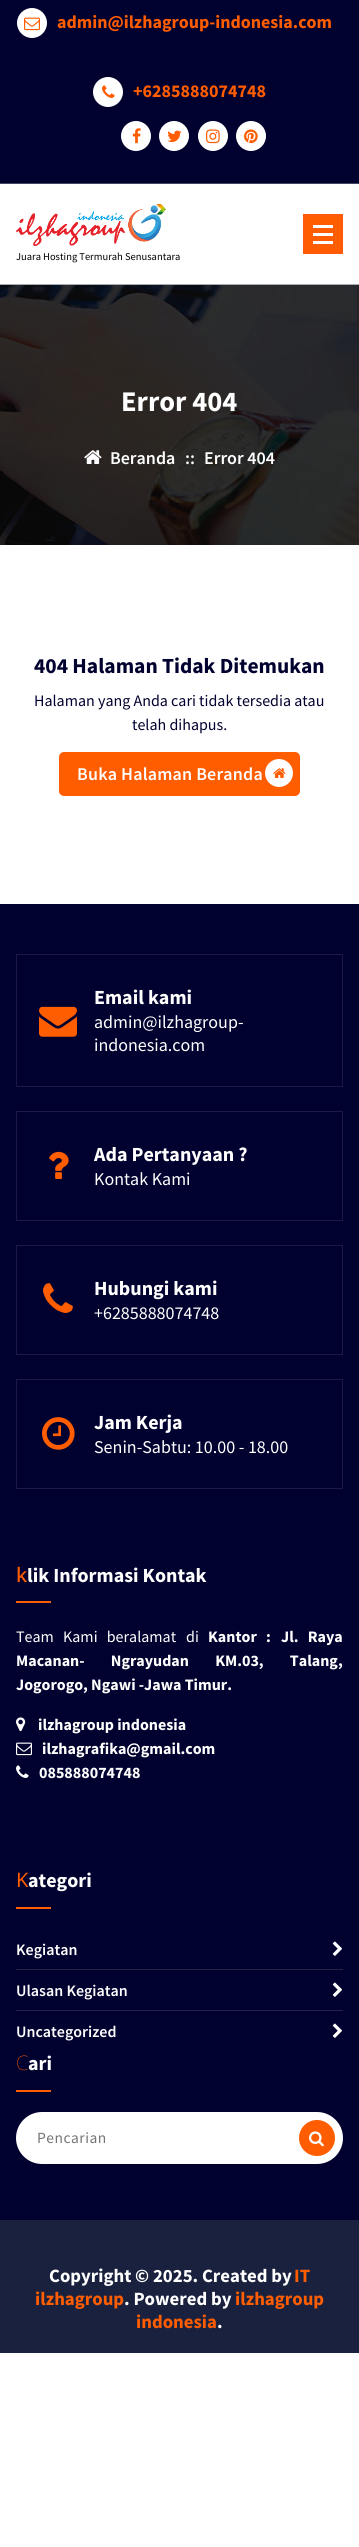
import math
import cairo


def write_spaced(ctx, x, y, s, letter, word):
	ctx.move_to(x, y)
	for ch in s:
		ctx.show_text(ch)
		ctx.rel_move_to(letter + word * (ch == ' '), 0)

def round_path(ctx, x, y, w, h, r):
	ctx.new_sub_path()
	for i, (u, v) in enumerate([(x + w - r, y + h - r), (x + r, y + h - r), (x + r, y + r), (x + w - r, y + r)]):
		ctx.arc(u, v, r, i * math.pi / 2, (i + 1) * math.pi / 2)
	ctx.close_path()

def paste(ctx, path, x, y, w, h):
	ctx.save()
	ctx.set_source_surface(cairo.ImageSurface.create_from_png(path), x, y)
	ctx.rectangle(x, y, w, h)
	ctx.fill()
	ctx.restore()

def draw(ctx):
	ctx.set_source_rgb(1, 1, 1)
	ctx.paint()
	ctx.set_source_rgb(0.004, 0.004, 0.184)
	ctx.rectangle(0, 0, 359, 183)
	ctx.fill()
	ctx.set_source_rgb(0.255, 0.278, 0.369)
	ctx.rectangle(0, 183, 359, 1)
	ctx.fill()
	ctx.set_source_rgb(1, 1, 1)
	ctx.arc(32, 23, 15, 0, 2 * math.pi)
	ctx.fill()
	paste(ctx, 'media/1.png', 24, 17, 16, 14)
	ctx.select_font_face('Source Sans Pro', cairo.FONT_SLANT_NORMAL, cairo.FONT_WEIGHT_BOLD)
	ctx.set_font_size(18)
	ctx.set_source_rgb(1, 0.365, 0)
	ctx.move_to(57, 28)
	ctx.show_text('admin@ilzhagroup-indonesia.com')
	ctx.set_source_rgb(1, 1, 1)
	ctx.new_path()
	ctx.arc(108, 92, 15, 0, 2 * math.pi)
	ctx.fill()
	paste(ctx, 'media/2.png', 102, 85, 13, 13)
	ctx.set_source_rgb(1, 0.365, 0)
	ctx.move_to(133, 97)
	ctx.show_text('+6285888074748')
	ctx.set_source_rgb(1, 1, 1)
	ctx.new_path()
	ctx.arc(136, 136, 15, 0, 2 * math.pi)
	ctx.fill()
	paste(ctx, 'media/3.png', 132, 128, 9, 16)
	ctx.arc(174, 136, 15, 0, 2 * math.pi)
	ctx.fill()
	paste(ctx, 'media/4.png', 167, 130, 15, 12)
	ctx.arc(213, 136, 15, 0, 2 * math.pi)
	ctx.fill()
	paste(ctx, 'media/5.png', 206, 129, 14, 15)
	ctx.arc(251, 136, 15, 0, 2 * math.pi)
	ctx.fill()
	paste(ctx, 'media/6.png', 244, 129, 14, 15)
	ctx.set_source_rgb(0.655, 0.675, 0.694)
	ctx.rectangle(0, 284, 359, 1)
	ctx.fill()
	ctx.set_source_rgb(1, 0.365, 0)
	ctx.rectangle(304, 215, 38, 38)
	ctx.fill_preserve()
	ctx.set_source_rgb(1, 0.349, 0.039)
	ctx.stroke()
	ctx.set_source_rgb(1, 1, 1)
	ctx.rectangle(313, 225, 20, 3)
	ctx.rectangle(313, 233, 20, 3)
	ctx.rectangle(313, 241, 20, 3)
	ctx.fill()
	paste(ctx, 'media/7.png', 16, 204, 150, 42)
	ctx.select_font_face('Source Sans Pro')
	ctx.set_font_size(10.5)
	ctx.set_source_rgb(0, 0, 0)
	ctx.move_to(16, 260)
	ctx.show_text('Juara Hosting Termurah Senusantara')
	paste(ctx, 'media/8.png', 0, 285, 359, 260)
	ctx.select_font_face('Source Sans Pro', cairo.FONT_SLANT_NORMAL, cairo.FONT_WEIGHT_BOLD)
	ctx.set_font_size(28.5)
	ctx.set_source_rgb(1, 1, 1)
	ctx.move_to(121, 411)
	ctx.show_text('Error 404')
	paste(ctx, 'media/9.png', 84, 450, 18, 14)
	ctx.select_font_face('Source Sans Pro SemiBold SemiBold')
	ctx.set_font_size(18)
	for x, y, s in [
		(110, 464, 'Beranda'),
		(185, 464, '::'),
		(204, 464, 'Error 404'),
	]:
		ctx.move_to(x, y)
		ctx.show_text(s)
	ctx.select_font_face('Source Sans Pro', cairo.FONT_SLANT_NORMAL, cairo.FONT_WEIGHT_BOLD)
	ctx.set_font_size(21.5)
	ctx.set_source_rgb(0.004, 0.004, 0.184)
	ctx.move_to(34, 673)
	ctx.show_text('404 Halaman Tidak Ditemukan')
	ctx.select_font_face('Source Sans Pro')
	ctx.set_font_size(16)
	ctx.move_to(34, 706)
	ctx.show_text('Halaman yang Anda cari tidak tersedia atau')
	ctx.move_to(132, 730)
	ctx.show_text('telah dihapus.')
	ctx.set_source_rgb(1, 0.365, 0)
	round_path(ctx, 60, 753, 239, 42, 4)
	ctx.fill_preserve()
	ctx.stroke()
	ctx.select_font_face('Source Sans Pro SemiBold SemiBold')
	ctx.set_font_size(18)
	ctx.set_source_rgb(1, 1, 1)
	write_spaced(ctx, 77, 780, 'Buka Halaman Beranda', 0.2, 0)
	ctx.new_path()
	ctx.arc(279, 773, 14, 0, 2 * math.pi)
	ctx.fill()
	paste(ctx, 'media/10.png', 273, 768, 13, 10)
	ctx.set_source_rgb(0.004, 0.004, 0.184)
	ctx.rectangle(0, 904, 359, 1316)
	ctx.fill()
	ctx.rectangle(16.5, 954.5, 326, 132)
	ctx.set_source_rgb(0.102, 0.102, 0.267)
	ctx.set_line_width(1)
	ctx.stroke()
	paste(ctx, 'media/11.png', 39, 1006, 38, 31)
	ctx.select_font_face('Source Sans Pro', cairo.FONT_SLANT_NORMAL, cairo.FONT_WEIGHT_BOLD)
	ctx.set_font_size(20)
	ctx.set_source_rgb(1, 1, 1)
	ctx.move_to(94, 1004)
	ctx.show_text('Email kami')
	ctx.select_font_face('Source Sans Pro')
	ctx.set_font_size(18)
	ctx.move_to(94, 1028)
	ctx.show_text('admin@ilzhagroup-')
	ctx.move_to(94, 1051)
	ctx.show_text('indonesia.com')
	ctx.rectangle(16.5, 1111.5, 326, 109)
	ctx.set_source_rgb(0.102, 0.102, 0.267)
	ctx.stroke()
	paste(ctx, 'media/12.png', 49, 1151, 20, 28)
	ctx.select_font_face('Source Sans Pro', cairo.FONT_SLANT_NORMAL, cairo.FONT_WEIGHT_BOLD)
	ctx.set_font_size(20)
	ctx.set_source_rgb(1, 1, 1)
	ctx.move_to(94, 1161)
	ctx.show_text('Ada Pertanyaan ?')
	ctx.select_font_face('Source Sans Pro')
	ctx.set_font_size(18)
	ctx.move_to(94, 1185)
	ctx.show_text('Kontak Kami')
	ctx.rectangle(16.5, 1245.5, 326, 109)
	ctx.set_source_rgb(0.102, 0.102, 0.267)
	ctx.stroke()
	paste(ctx, 'media/13.png', 43, 1283, 30, 30)
	ctx.select_font_face('Source Sans Pro', cairo.FONT_SLANT_NORMAL, cairo.FONT_WEIGHT_BOLD)
	ctx.set_font_size(20)
	ctx.set_source_rgb(1, 1, 1)
	ctx.move_to(94, 1295)
	ctx.show_text('Hubungi kami')
	ctx.select_font_face('Source Sans Pro')
	ctx.set_font_size(18)
	ctx.move_to(94, 1319)
	ctx.show_text('+6285888074748')
	ctx.rectangle(16.5, 1379.5, 326, 109)
	ctx.set_source_rgb(0.102, 0.102, 0.267)
	ctx.stroke()
	paste(ctx, 'media/14.png', 42, 1417, 33, 33)
	ctx.select_font_face('Source Sans Pro', cairo.FONT_SLANT_NORMAL, cairo.FONT_WEIGHT_BOLD)
	ctx.set_font_size(20)
	ctx.set_source_rgb(1, 1, 1)
	ctx.move_to(94, 1429)
	ctx.show_text('Jam Kerja')
	ctx.select_font_face('Source Sans Pro')
	ctx.set_font_size(18)
	ctx.move_to(94, 1453)
	ctx.show_text('Senin-Sabtu: 10.00 - 18.00')
	ctx.select_font_face('Noto Sans Medium')
	ctx.set_font_size(20)
	ctx.set_source_rgb(1, 0.365, 0)
	ctx.move_to(16, 1582)
	ctx.show_text('k')
	ctx.select_font_face('Source Sans Pro', cairo.FONT_SLANT_NORMAL, cairo.FONT_WEIGHT_BOLD)
	ctx.set_source_rgb(1, 1, 1)
	ctx.move_to(27, 1582)
	ctx.show_text('lik Informasi Kontak')
	ctx.set_source_rgb(1, 0.365, 0)
	ctx.rectangle(16, 1601, 35, 2)
	ctx.fill()
	ctx.select_font_face('Source Sans Pro')
	ctx.set_font_size(16)
	ctx.set_source_rgb(1, 1, 1)
	write_spaced(ctx, 16, 1642, 'Team Kami beralamat', 0, 6)
	ctx.move_to(186, 1642)
	ctx.show_text('di')
	ctx.select_font_face('Source Sans Pro', cairo.FONT_SLANT_NORMAL, cairo.FONT_WEIGHT_BOLD)
	write_spaced(ctx, 208, 1642, 'Kantor :', 0, 6)
	write_spaced(ctx, 281, 1642, 'Jl. Raya', 0, 6)
	write_spaced(ctx, 16, 1666, 'Macanan- Ngrayudan KM.03, Talang,', 0, 23)
	ctx.move_to(16, 1690)
	ctx.show_text('Jogorogo, Ngawi -Jawa Timur.')
	paste(ctx, 'media/15.png', 16, 1717, 10, 15)
	ctx.move_to(38, 1730)
	ctx.show_text('ilzhagroup indonesia')
	paste(ctx, 'media/16.png', 16, 1742, 16, 14)
	ctx.move_to(42, 1754)
	ctx.show_text('ilzhagrafika@gmail.com')
	paste(ctx, 'media/17.png', 16, 1765, 13, 13)
	ctx.move_to(39, 1778)
	ctx.show_text('085888074748')
	ctx.select_font_face('Noto Sans')
	ctx.set_font_size(20)
	ctx.set_source_rgb(1, 0.365, 0)
	ctx.move_to(16, 1887)
	ctx.show_text('K')
	ctx.select_font_face('Source Sans Pro', cairo.FONT_SLANT_NORMAL, cairo.FONT_WEIGHT_BOLD)
	ctx.set_source_rgb(1, 1, 1)
	ctx.move_to(28, 1887)
	ctx.show_text('ategori')
	ctx.set_source_rgb(1, 0.365, 0)
	ctx.rectangle(16, 1907, 35, 2)
	ctx.fill()
	ctx.set_source_rgb(0.137, 0.137, 0.282)
	ctx.rectangle(16, 1969, 327, 1)
	ctx.fill()
	ctx.select_font_face('Source Sans Pro SemiBold SemiBold')
	ctx.set_font_size(16)
	ctx.set_source_rgb(1, 1, 1)
	ctx.move_to(16, 1955)
	ctx.show_text('Kegiatan')
	paste(ctx, 'media/18.png', 332, 1941, 10, 15)
	ctx.set_source_rgb(0.137, 0.137, 0.282)
	ctx.rectangle(16, 2010, 327, 1)
	ctx.fill()
	ctx.set_source_rgb(1, 1, 1)
	ctx.move_to(16, 1996)
	ctx.show_text('Ulasan Kegiatan')
	paste(ctx, 'media/18.png', 332, 1982, 10, 15)
	ctx.move_to(16, 2037)
	ctx.show_text('Uncategorized')
	paste(ctx, 'media/18.png', 332, 2023, 10, 15)
	ctx.select_font_face('Noto Sans Thin')
	ctx.set_font_size(20)
	ctx.set_source_rgb(1, 0.365, 0)
	ctx.move_to(16, 2070)
	ctx.show_text('C')
	ctx.select_font_face('Source Sans Pro', cairo.FONT_SLANT_NORMAL, cairo.FONT_WEIGHT_BOLD)
	ctx.set_source_rgb(1, 1, 1)
	ctx.move_to(28, 2070)
	ctx.show_text('ari')
	ctx.set_source_rgb(1, 0.365, 0)
	ctx.rectangle(16, 2090, 35, 2)
	ctx.fill()
	ctx.set_source_rgb(1, 1, 1)
	round_path(ctx, 16, 2112, 327, 52, 26)
	ctx.fill()
	ctx.select_font_face('Source Sans Pro')
	ctx.set_font_size(15.5)
	ctx.set_source_rgb(0.459, 0.459, 0.459)
	write_spaced(ctx, 37, 2143, 'Pencarian', 0.5, 0)
	ctx.set_source_rgb(1, 0.365, 0)
	ctx.new_path()
	ctx.arc(317, 2138, 18, 0, 2 * math.pi)
	ctx.fill()
	paste(ctx, 'media/19.png', 309, 2131, 15, 16)
	ctx.set_source_rgb(0.102, 0.129, 0.243)
	ctx.rectangle(0, 2220, 359, 133)
	ctx.fill()
	ctx.select_font_face('Source Sans Pro', cairo.FONT_SLANT_NORMAL, cairo.FONT_WEIGHT_BOLD)
	ctx.set_font_size(18.75)
	ctx.set_source_rgb(1, 1, 1)
	ctx.move_to(49, 2282)
	ctx.show_text('Copyright © 2025. Created by')
	ctx.set_source_rgb(1, 0.365, 0)
	ctx.move_to(294, 2282)
	ctx.show_text('IT')
	ctx.move_to(35, 2305)
	ctx.show_text('ilzhagroup')
	ctx.set_source_rgb(1, 1, 1)
	ctx.move_to(124, 2305)
	ctx.show_text('. Powered by')
	ctx.set_source_rgb(1, 0.365, 0)
	ctx.move_to(235, 2305)
	ctx.show_text('ilzhagroup')
	ctx.move_to(136, 2328)
	ctx.show_text('indonesia')
	ctx.set_source_rgb(1, 1, 1)
	ctx.move_to(217, 2328)
	ctx.show_text('.')


surface = cairo.ImageSurface(cairo.FORMAT_RGB24, 359, 2547)
ctx = cairo.Context(surface)
options = cairo.FontOptions()
options.set_hint_metrics(cairo.HINT_METRICS_OFF)
options.set_hint_style(cairo.HINT_STYLE_NONE)
ctx.set_font_options(options)
ctx.set_miter_limit(4)
draw(ctx)
surface.write_to_png('image.png')
